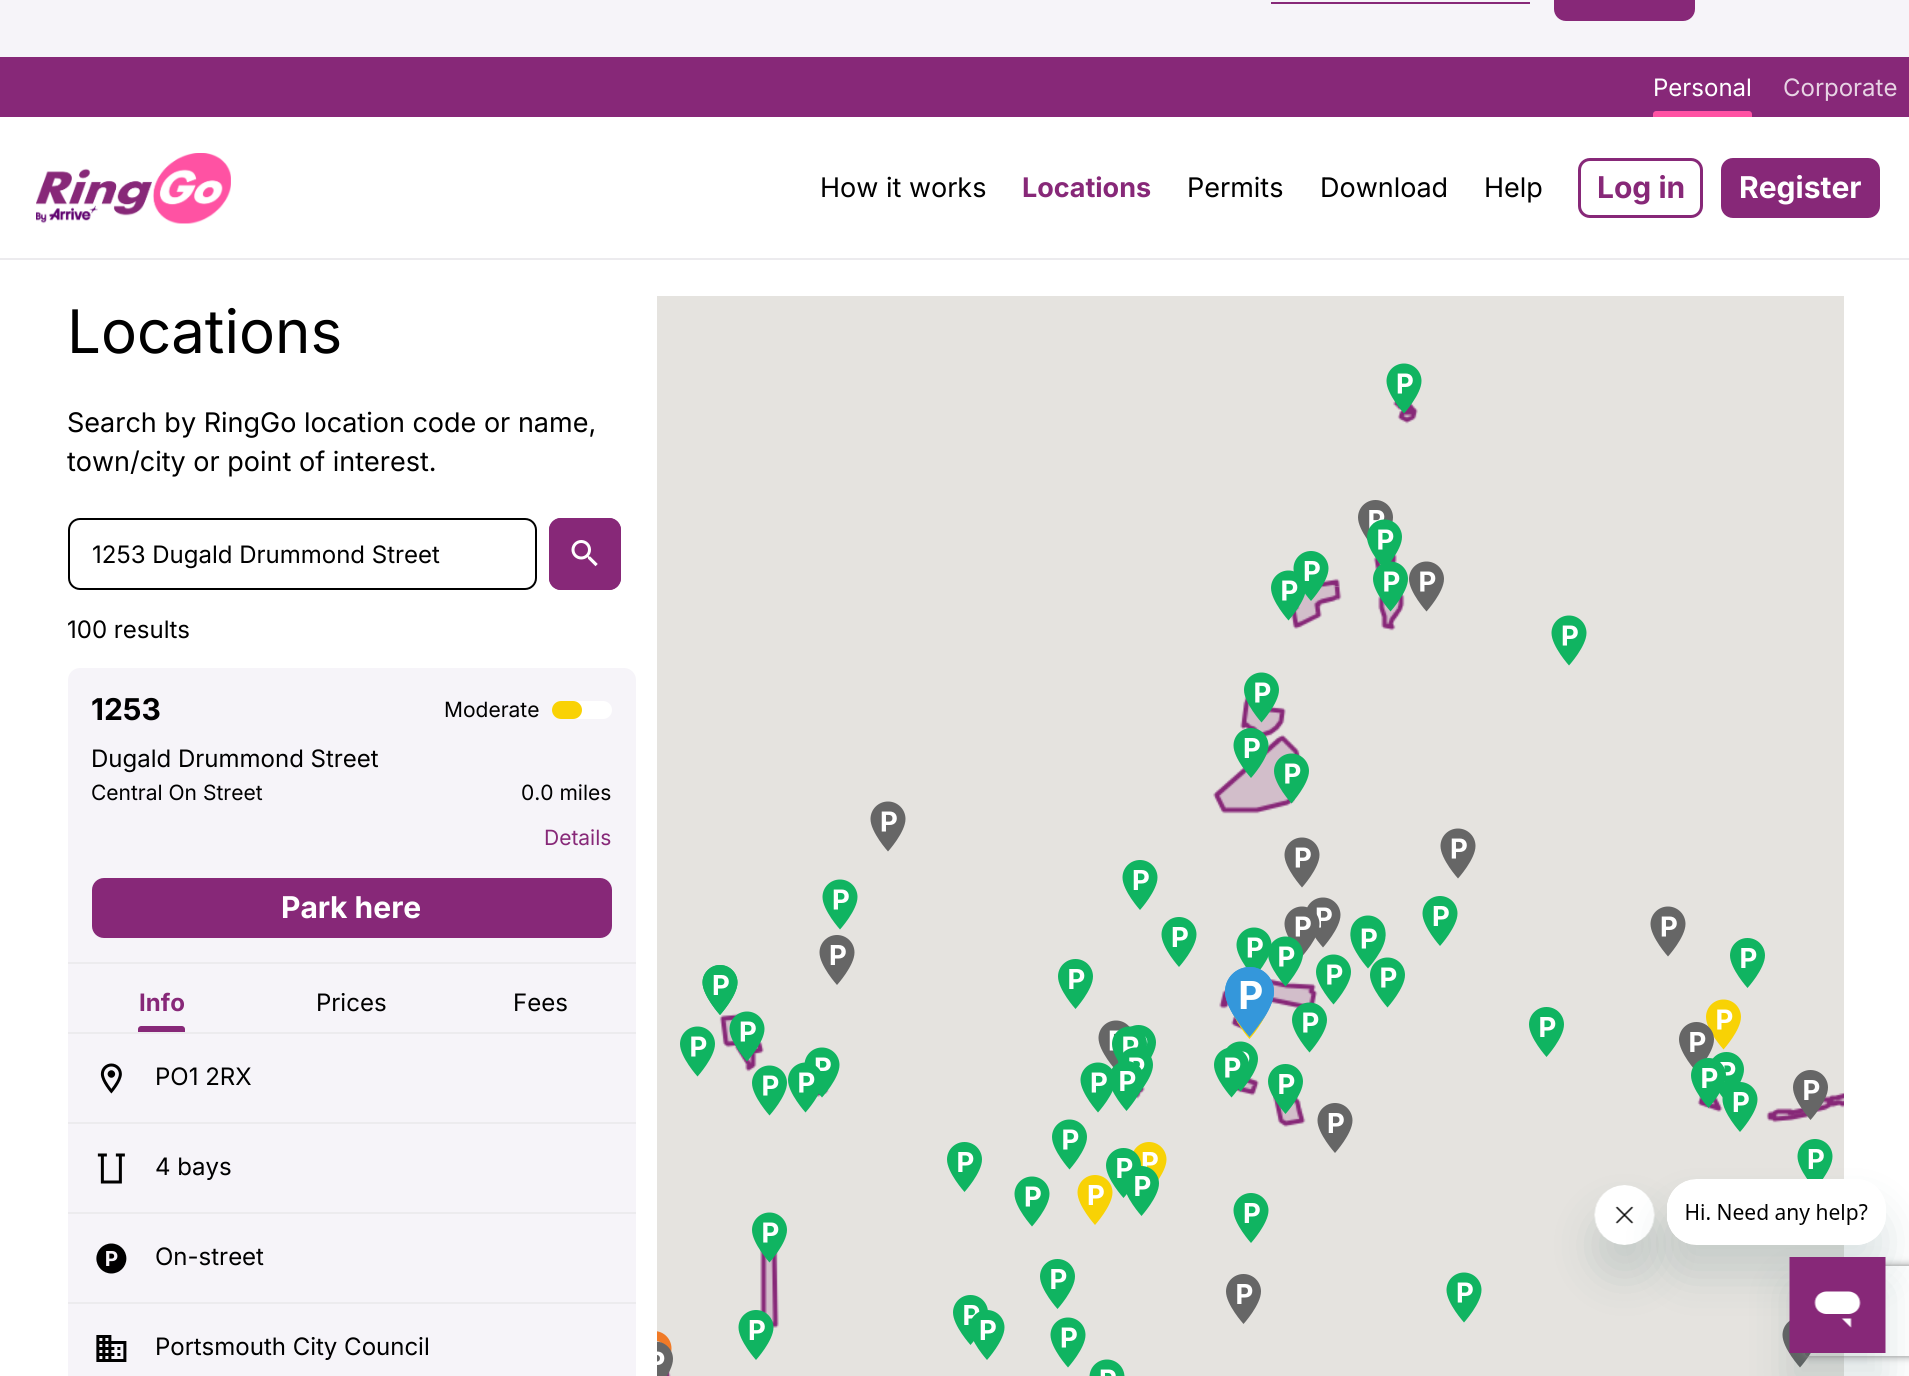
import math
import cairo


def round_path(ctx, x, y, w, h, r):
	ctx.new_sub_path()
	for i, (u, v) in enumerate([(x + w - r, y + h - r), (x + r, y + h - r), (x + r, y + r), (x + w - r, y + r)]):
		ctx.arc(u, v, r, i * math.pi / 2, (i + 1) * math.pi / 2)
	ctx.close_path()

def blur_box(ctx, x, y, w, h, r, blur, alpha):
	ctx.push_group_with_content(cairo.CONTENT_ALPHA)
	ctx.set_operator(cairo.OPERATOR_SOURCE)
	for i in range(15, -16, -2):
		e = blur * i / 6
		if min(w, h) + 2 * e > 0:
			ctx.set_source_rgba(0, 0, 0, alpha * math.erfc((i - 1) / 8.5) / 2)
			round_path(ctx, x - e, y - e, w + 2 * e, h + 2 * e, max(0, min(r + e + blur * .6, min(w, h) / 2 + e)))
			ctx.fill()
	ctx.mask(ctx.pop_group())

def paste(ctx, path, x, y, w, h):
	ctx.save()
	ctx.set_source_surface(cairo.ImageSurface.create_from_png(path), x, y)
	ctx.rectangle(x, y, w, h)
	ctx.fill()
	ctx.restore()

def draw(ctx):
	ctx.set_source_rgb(1, 1, 1)
	ctx.paint()
	ctx.set_source_rgb(0.961, 0.957, 0.976)
	ctx.rectangle(0, 0, 1909, 57)
	ctx.fill()
	ctx.set_source_rgb(0.529, 0.157, 0.471)
	ctx.rectangle(1271, 2, 259, 2)
	ctx.fill()
	round_path(ctx, 1555.5, -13.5, 138, 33, 10.5)
	ctx.fill_preserve()
	ctx.set_line_width(3)
	ctx.stroke()
	ctx.rectangle(0, 57, 1909, 60)
	ctx.fill()
	ctx.select_font_face('Inter')
	ctx.set_font_size(24)
	ctx.set_source_rgb(1, 1, 1)
	ctx.move_to(1653, 96)
	ctx.show_text('Personal')
	ctx.set_source_rgb(1, 0.322, 0.639)
	ctx.new_path()
	ctx.move_to(1656, 111)
	ctx.line_to(1749, 111)
	ctx.curve_to(1750.5, 111, 1752, 112.5, 1752, 114)
	ctx.line_to(1752, 117)
	ctx.line_to(1653, 117)
	ctx.line_to(1653, 114)
	ctx.curve_to(1653, 112.5, 1654.5, 111, 1656, 111)
	ctx.close_path()
	ctx.fill()
	ctx.set_source_rgb(0.906, 0.831, 0.894)
	ctx.move_to(1783, 96)
	ctx.show_text('Corporate')
	ctx.set_source_rgb(0.922, 0.918, 0.933)
	ctx.rectangle(0, 258, 1909, 2)
	ctx.fill()
	paste(ctx, 'media/1.png', 36, 153, 195, 71)
	ctx.set_font_size(27)
	ctx.set_source_rgb(0, 0, 0)
	ctx.move_to(820, 197)
	ctx.show_text('How it works')
	ctx.select_font_face('Inter', cairo.FONT_SLANT_NORMAL, cairo.FONT_WEIGHT_BOLD)
	ctx.set_source_rgb(0.529, 0.157, 0.471)
	ctx.move_to(1022, 197)
	ctx.show_text('Locations')
	ctx.select_font_face('Inter')
	ctx.set_source_rgb(0, 0, 0)
	for x, y, s in [
		(1187, 197, 'Permits'),
		(1320, 197, 'Download'),
		(1484, 197, 'Help'),
	]:
		ctx.move_to(x, y)
		ctx.show_text(s)
	round_path(ctx, 1579.5, 159.5, 122, 57, 10.5)
	ctx.set_source_rgb(0.529, 0.157, 0.471)
	ctx.stroke()
	ctx.select_font_face('Inter', cairo.FONT_SLANT_NORMAL, cairo.FONT_WEIGHT_BOLD)
	ctx.set_font_size(30)
	ctx.move_to(1597, 198)
	ctx.show_text('Log in')
	round_path(ctx, 1722.5, 159.5, 156, 57, 10.5)
	ctx.fill_preserve()
	ctx.stroke()
	ctx.set_source_rgb(1, 1, 1)
	ctx.move_to(1739, 198)
	ctx.show_text('Register')
	ctx.select_font_face('Inter')
	ctx.set_font_size(60)
	ctx.set_source_rgb(0, 0, 0)
	ctx.move_to(67, 353)
	ctx.show_text('Locations')
	ctx.set_font_size(27)
	ctx.move_to(67, 432)
	ctx.show_text('Search by RingGo location code or name,')
	ctx.move_to(67, 471)
	ctx.show_text('town/city or point of interest.')
	round_path(ctx, 69, 519, 467, 70, 11)
	ctx.set_line_width(2)
	ctx.stroke()
	ctx.set_font_size(24)
	ctx.move_to(92, 563)
	ctx.show_text('1253 Dugald Drummond Street')
	ctx.set_source_rgb(0.529, 0.157, 0.471)
	round_path(ctx, 549, 518, 72, 72, 12)
	ctx.fill()
	paste(ctx, 'media/2.png', 571, 540, 27, 27)
	round_path(ctx, 550.5, 519.5, 69, 69, 10.5)
	ctx.set_line_width(3)
	ctx.stroke()
	ctx.set_source_rgb(0, 0, 0)
	ctx.move_to(67, 638)
	ctx.show_text('100 results')
	ctx.set_source_rgb(0.961, 0.957, 0.976)
	round_path(ctx, 68, 668, 568, 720, 12)
	ctx.fill()
	ctx.select_font_face('Inter', cairo.FONT_SLANT_NORMAL, cairo.FONT_WEIGHT_BOLD)
	ctx.set_font_size(30)
	ctx.set_source_rgb(0, 0, 0)
	ctx.move_to(91, 720)
	ctx.show_text('1253')
	ctx.select_font_face('Inter')
	ctx.set_font_size(21)
	ctx.move_to(444, 717)
	ctx.show_text('Moderate')
	ctx.set_source_rgb(1, 1, 1)
	round_path(ctx, 552, 701, 60, 18, 9)
	ctx.fill()
	ctx.set_source_rgb(0.973, 0.824, 0.02)
	round_path(ctx, 552, 701, 30, 18, 9)
	ctx.fill()
	ctx.set_font_size(24)
	ctx.set_source_rgb(0, 0, 0)
	ctx.move_to(91, 767)
	ctx.show_text('Dugald Drummond Street')
	ctx.set_font_size(21)
	ctx.move_to(91, 800)
	ctx.show_text('Central On Street')
	ctx.move_to(521, 800)
	ctx.show_text('0.0 miles')
	ctx.set_source_rgb(0.529, 0.157, 0.471)
	ctx.move_to(544, 845)
	ctx.show_text('Details')
	round_path(ctx, 93.5, 879.5, 517, 57, 10.5)
	ctx.fill_preserve()
	ctx.stroke()
	ctx.select_font_face('Inter', cairo.FONT_SLANT_NORMAL, cairo.FONT_WEIGHT_BOLD)
	ctx.set_font_size(30)
	ctx.set_source_rgb(1, 1, 1)
	ctx.move_to(281, 918)
	ctx.show_text('Park here')
	ctx.set_source_rgb(0.922, 0.918, 0.933)
	ctx.rectangle(68, 962, 568, 2)
	ctx.fill()
	ctx.rectangle(68, 1032, 568, 2)
	ctx.fill()
	ctx.set_font_size(24)
	ctx.set_source_rgb(0.529, 0.157, 0.471)
	ctx.move_to(139, 1011)
	ctx.show_text('Info')
	ctx.new_path()
	ctx.move_to(141, 1026)
	ctx.line_to(182, 1026)
	ctx.curve_to(183.5, 1026, 185, 1027.5, 185, 1029)
	ctx.line_to(185, 1032)
	ctx.line_to(138, 1032)
	ctx.line_to(138, 1029)
	ctx.curve_to(138, 1027.5, 139.5, 1026, 141, 1026)
	ctx.close_path()
	ctx.fill()
	ctx.select_font_face('Inter')
	ctx.set_source_rgb(0, 0, 0)
	ctx.move_to(316, 1011)
	ctx.show_text('Prices')
	ctx.move_to(513, 1011)
	ctx.show_text('Fees')
	ctx.set_source_rgb(0.922, 0.918, 0.933)
	ctx.rectangle(68, 1122, 568, 2)
	ctx.fill()
	paste(ctx, 'media/3.png', 100, 1063, 22, 31)
	ctx.set_source_rgb(0, 0, 0)
	ctx.move_to(155, 1085)
	ctx.show_text('PO1 2RX')
	ctx.set_source_rgb(0.922, 0.918, 0.933)
	ctx.rectangle(68, 1212, 568, 2)
	ctx.fill()
	paste(ctx, 'media/4.png', 97, 1153, 28, 31)
	ctx.set_source_rgb(0, 0, 0)
	ctx.move_to(155, 1175)
	ctx.show_text('4 bays')
	ctx.set_source_rgb(0.922, 0.918, 0.933)
	ctx.rectangle(68, 1302, 568, 2)
	ctx.fill()
	paste(ctx, 'media/5.png', 96, 1243, 31, 31)
	ctx.set_source_rgb(0, 0, 0)
	ctx.move_to(155, 1265)
	ctx.show_text('On-street')
	paste(ctx, 'media/6.png', 96, 1335, 31, 27)
	ctx.move_to(155, 1355)
	ctx.show_text('Portsmouth City Council')
	ctx.set_source_rgb(0.898, 0.89, 0.875)
	ctx.rectangle(657, 296, 1187, 1080)
	ctx.fill()
	paste(ctx, 'media/69.png', 1373, 400, 45, 171)
	paste(ctx, 'media/7.png', 1386, 363, 36, 51)
	paste(ctx, 'media/8.png', 1358, 500, 35, 41)
	paste(ctx, 'media/9.png', 1367, 519, 35, 46)
	paste(ctx, 'media/71.png', 1213, 586, 129, 228)
	paste(ctx, 'media/70.png', 1321, 578, 19, 9)
	paste(ctx, 'media/11.png', 1293, 551, 36, 50)
	paste(ctx, 'media/10.png', 1271, 570, 34, 51)
	paste(ctx, 'media/72.png', 1378, 594, 27, 37)
	paste(ctx, 'media/12.png', 1373, 561, 35, 51)
	paste(ctx, 'media/13.png', 1409, 561, 35, 51)
	paste(ctx, 'media/14.png', 1551, 615, 36, 51)
	paste(ctx, 'media/15.png', 1244, 672, 35, 51)
	paste(ctx, 'media/16.png', 1233, 728, 36, 50)
	paste(ctx, 'media/17.png', 1274, 753, 35, 51)
	paste(ctx, 'media/14.png', 822, 879, 36, 51)
	paste(ctx, 'media/18.png', 870, 801, 36, 51)
	paste(ctx, 'media/19.png', 1122, 860, 36, 50)
	paste(ctx, 'media/18.png', 1284, 837, 36, 51)
	paste(ctx, 'media/18.png', 1440, 828, 36, 51)
	paste(ctx, 'media/19.png', 1161, 917, 36, 50)
	paste(ctx, 'media/21.png', 1307, 897, 34, 51)
	paste(ctx, 'media/20.png', 1284, 906, 36, 51)
	paste(ctx, 'media/22.png', 1350, 915, 36, 26)
	paste(ctx, 'media/19.png', 1422, 896, 36, 50)
	paste(ctx, 'media/18.png', 1650, 906, 36, 51)
	paste(ctx, 'media/73.png', 719, 1013, 110, 315)
	paste(ctx, 'media/23.png', 702, 965, 36, 50)
	paste(ctx, 'media/24.png', 819, 935, 36, 50)
	paste(ctx, 'media/25.png', 1058, 959, 35, 50)
	paste(ctx, 'media/26.png', 1236, 927, 36, 43)
	paste(ctx, 'media/74.png', 1135, 979, 183, 148)
	paste(ctx, 'media/27.png', 1268, 936, 35, 51)
	paste(ctx, 'media/29.png', 1350, 925, 36, 44)
	paste(ctx, 'media/28.png', 1316, 954, 35, 51)
	paste(ctx, 'media/30.png', 1370, 957, 35, 51)
	paste(ctx, 'media/25.png', 1730, 938, 35, 50)
	paste(ctx, 'media/31.png', 702, 965, 36, 50)
	paste(ctx, 'media/36.png', 1228, 1004, 9, 16)
	ctx.set_source_rgb(0.204, 0.592, 0.859)
	ctx.set_fill_rule(cairo.FILL_RULE_EVEN_ODD)
	ctx.new_path()
	ctx.move_to(1250, 967)
	ctx.curve_to(1236, 967, 1225, 978, 1225, 992)
	ctx.curve_to(1225, 1010, 1250, 1037, 1250, 1037)
	ctx.curve_to(1250, 1037, 1274, 1010, 1274, 992)
	ctx.curve_to(1274, 978, 1263, 967, 1250, 967)
	ctx.close_path()
	ctx.move_to(1250, 1000)
	ctx.curve_to(1238, 1000, 1238, 983, 1250, 983)
	ctx.curve_to(1261, 983, 1261, 1000, 1250, 1000)
	ctx.close_path()
	ctx.fill()
	paste(ctx, 'media/40.png', 1232, 1012, 35, 27)
	paste(ctx, 'media/32.png', 1225, 967, 49, 70)
	paste(ctx, 'media/33.png', 1292, 1002, 35, 51)
	paste(ctx, 'media/34.png', 1706, 999, 35, 51)
	paste(ctx, 'media/35.png', 729, 1011, 36, 51)
	paste(ctx, 'media/25.png', 1529, 1007, 35, 50)
	paste(ctx, 'media/37.png', 680, 1026, 35, 51)
	paste(ctx, 'media/38.png', 1098, 1020, 32, 48)
	paste(ctx, 'media/39.png', 1130, 1025, 26, 33)
	paste(ctx, 'media/41.png', 1679, 1022, 35, 46)
	paste(ctx, 'media/42.png', 804, 1047, 36, 51)
	paste(ctx, 'media/43.png', 1112, 1026, 35, 37)
	paste(ctx, 'media/44.png', 1226, 1041, 32, 51)
	paste(ctx, 'media/45.png', 1118, 1047, 35, 49)
	paste(ctx, 'media/46.png', 1214, 1048, 35, 50)
	paste(ctx, 'media/75.png', 1697, 1095, 26, 17)
	paste(ctx, 'media/48.png', 1712, 1052, 32, 46)
	paste(ctx, 'media/47.png', 1691, 1058, 35, 50)
	paste(ctx, 'media/49.png', 752, 1065, 35, 51)
	paste(ctx, 'media/50.png', 788, 1062, 33, 51)
	paste(ctx, 'media/37.png', 1052, 1119, 35, 51)
	paste(ctx, 'media/52.png', 1111, 1061, 31, 50)
	paste(ctx, 'media/51.png', 1080, 1062, 33, 51)
	paste(ctx, 'media/53.png', 1268, 1064, 35, 50)
	paste(ctx, 'media/24.png', 1317, 1103, 36, 50)
	paste(ctx, 'media/54.png', 1722, 1082, 36, 50)
	paste(ctx, 'media/76.png', 1766, 1092, 78, 31)
	paste(ctx, 'media/55.png', 1793, 1070, 35, 50)
	paste(ctx, 'media/25.png', 947, 1142, 35, 50)
	paste(ctx, 'media/57.png', 1133, 1142, 34, 39)
	paste(ctx, 'media/56.png', 1106, 1148, 35, 50)
	paste(ctx, 'media/58.png', 1797, 1139, 36, 40)
	paste(ctx, 'media/59.png', 752, 1212, 35, 51)
	paste(ctx, 'media/14.png', 1014, 1176, 36, 51)
	paste(ctx, 'media/60.png', 1077, 1175, 36, 50)
	paste(ctx, 'media/61.png', 1126, 1166, 33, 50)
	paste(ctx, 'media/19.png', 1233, 1193, 36, 50)
	paste(ctx, 'media/62.png', 738, 1310, 36, 50)
	paste(ctx, 'media/25.png', 953, 1295, 35, 50)
	paste(ctx, 'media/25.png', 1040, 1259, 35, 50)
	paste(ctx, 'media/63.png', 1226, 1274, 35, 50)
	paste(ctx, 'media/14.png', 1446, 1272, 36, 51)
	paste(ctx, 'media/64.png', 657, 1331, 15, 21)
	paste(ctx, 'media/65.png', 971, 1310, 34, 50)
	paste(ctx, 'media/14.png', 1050, 1317, 36, 51)
	paste(ctx, 'media/66.png', 1782, 1320, 29, 48)
	paste(ctx, 'media/77.png', 666, 1370, 5, 6)
	paste(ctx, 'media/67.png', 657, 1341, 16, 35)
	paste(ctx, 'media/68.png', 1089, 1359, 36, 17)
	ctx.set_source_rgb(0.09, 0.286, 0.302)
	blur_box(ctx, 1595, 1215, 60, 60, 30, 22.5, 0.15)
	paste(ctx, 'media/79.png', 1594, 1185, 61, 60)
	ctx.save()
	ctx.new_path()
	ctx.move_to(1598, 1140)
	ctx.line_to(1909, 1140)
	ctx.line_to(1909, 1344)
	ctx.line_to(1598, 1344)
	ctx.close_path()
	ctx.move_to(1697, 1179)
	ctx.line_to(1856, 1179)
	ctx.curve_to(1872.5, 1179, 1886, 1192.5, 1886, 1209)
	ctx.line_to(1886, 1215)
	ctx.curve_to(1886, 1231.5, 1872.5, 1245, 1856, 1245)
	ctx.line_to(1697, 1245)
	ctx.curve_to(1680.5, 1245, 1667, 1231.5, 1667, 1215)
	ctx.line_to(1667, 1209)
	ctx.curve_to(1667, 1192.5, 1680.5, 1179, 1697, 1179)
	ctx.close_path()
	ctx.clip()
	blur_box(ctx, 1667, 1209, 219, 66, 30, 22.5, 0.15)
	ctx.restore()
	paste(ctx, 'media/78.png', 1667, 1179, 201, 66)
	blur_box(ctx, 1790, 1287, 96, 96, 0, 22.5, 0.15)
	ctx.save()
	ctx.new_path()
	ctx.move_to(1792, 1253)
	ctx.line_to(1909, 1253)
	ctx.line_to(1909, 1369)
	ctx.line_to(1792, 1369)
	ctx.close_path()
	ctx.move_to(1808, 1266)
	ctx.line_to(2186, 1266)
	ctx.curve_to(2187.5, 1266, 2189, 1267.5, 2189, 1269)
	ctx.line_to(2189, 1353)
	ctx.curve_to(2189, 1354.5, 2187.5, 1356, 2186, 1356)
	ctx.line_to(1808, 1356)
	ctx.curve_to(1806.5, 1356, 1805, 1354.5, 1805, 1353)
	ctx.line_to(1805, 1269)
	ctx.curve_to(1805, 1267.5, 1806.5, 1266, 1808, 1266)
	ctx.close_path()
	ctx.clip()
	ctx.set_source_rgb(0.502, 0.502, 0.502)
	blur_box(ctx, 1805, 1266, 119, 90, 3, 4, 1)
	ctx.restore()
	paste(ctx, 'media/80.png', 1789, 1257, 97, 96)


surface = cairo.ImageSurface(cairo.FORMAT_RGB24, 1909, 1376)
ctx = cairo.Context(surface)
options = cairo.FontOptions()
options.set_hint_metrics(cairo.HINT_METRICS_OFF)
options.set_hint_style(cairo.HINT_STYLE_NONE)
ctx.set_font_options(options)
ctx.set_miter_limit(4)
draw(ctx)
surface.write_to_png('image.png')
